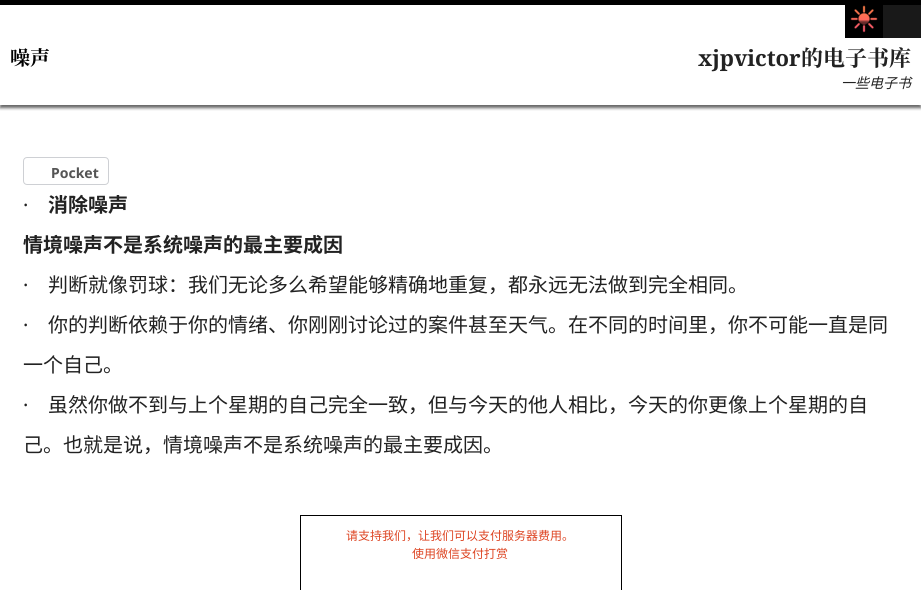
import math
import cairo


def round_path(ctx, x, y, w, h, r):
	ctx.new_sub_path()
	for i, (u, v) in enumerate([(x + w - r, y + h - r), (x + r, y + h - r), (x + r, y + r), (x + w - r, y + r)]):
		ctx.arc(u, v, r, i * math.pi / 2, (i + 1) * math.pi / 2)
	ctx.close_path()

def blur_box(ctx, x, y, w, h, r, blur, alpha):
	ctx.push_group_with_content(cairo.CONTENT_ALPHA)
	ctx.set_operator(cairo.OPERATOR_SOURCE)
	for i in range(15, -16, -2):
		e = blur * i / 6
		if min(w, h) + 2 * e > 0:
			ctx.set_source_rgba(0, 0, 0, alpha * math.erfc((i - 1) / 8.5) / 2)
			round_path(ctx, x - e, y - e, w + 2 * e, h + 2 * e, max(0, min(r + e + blur * .6, min(w, h) / 2 + e)))
			ctx.fill()
	ctx.mask(ctx.pop_group())

def paste(ctx, path, x, y, w, h):
	ctx.save()
	ctx.set_source_surface(cairo.ImageSurface.create_from_png(path), x, y)
	ctx.rectangle(x, y, w, h)
	ctx.fill()
	ctx.restore()

def draw(ctx):
	ctx.set_source_rgb(1, 1, 1)
	ctx.paint()
	ctx.set_source_rgb(0.098, 0.098, 0.098)
	ctx.rectangle(883, 5, 38, 33)
	ctx.fill()
	ctx.save()
	ctx.rectangle(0, 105, 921, 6)
	ctx.clip()
	ctx.set_source_rgb(0.4, 0.4, 0.4)
	blur_box(ctx, 0, 3, 921, 105, 0, 1.5, 1)
	ctx.restore()
	ctx.set_source_rgb(0, 0, 0)
	ctx.rectangle(0, 0, 845, 5)
	ctx.fill()
	ctx.rectangle(883, 0, 38, 5)
	ctx.fill()
	ctx.select_font_face('Noto Serif CJK SC', cairo.FONT_SLANT_NORMAL, cairo.FONT_WEIGHT_BOLD)
	ctx.set_font_size(20)
	ctx.move_to(10, 65)
	ctx.show_text('噪声')
	ctx.select_font_face('Noto Serif', cairo.FONT_SLANT_NORMAL, cairo.FONT_WEIGHT_BOLD)
	ctx.set_font_size(22)
	ctx.set_source_rgb(0.133, 0.133, 0.133)
	ctx.move_to(698, 66)
	ctx.show_text('xjpvictor')
	ctx.select_font_face('Noto Serif CJK SC', cairo.FONT_SLANT_NORMAL, cairo.FONT_WEIGHT_BOLD)
	ctx.move_to(801, 66)
	ctx.show_text('的电子书库')
	ctx.select_font_face('Noto Sans CJK SC', cairo.FONT_SLANT_ITALIC)
	ctx.set_font_size(14)
	ctx.move_to(841, 88)
	ctx.show_text('一些电子书')
	ctx.set_source_rgb(0, 0, 0)
	ctx.rectangle(845, 0, 38, 38)
	ctx.fill()
	paste(ctx, 'media/1.png', 850, 5, 28, 28)
	round_path(ctx, 23.5, 157.5, 85, 27, 3.5)
	ctx.set_source_rgb(0.808, 0.816, 0.831)
	ctx.set_line_width(1)
	ctx.stroke()
	ctx.select_font_face('Noto Sans', cairo.FONT_SLANT_NORMAL, cairo.FONT_WEIGHT_BOLD)
	ctx.set_source_rgb(0.333, 0.333, 0.333)
	ctx.move_to(51, 178)
	ctx.show_text('Pocket')
	ctx.select_font_face('Noto Sans')
	ctx.set_font_size(20)
	ctx.set_source_rgb(0.133, 0.133, 0.133)
	ctx.move_to(23, 212)
	ctx.show_text('·')
	ctx.select_font_face('Noto Sans CJK SC', cairo.FONT_SLANT_NORMAL, cairo.FONT_WEIGHT_BOLD)
	ctx.move_to(48, 212)
	ctx.show_text('消除噪声')
	ctx.move_to(23, 252)
	ctx.show_text('情境噪声不是系统噪声的最主要成因')
	ctx.select_font_face('Noto Sans')
	ctx.move_to(23, 292)
	ctx.show_text('·')
	ctx.select_font_face('Noto Sans CJK SC')
	ctx.move_to(48, 292)
	ctx.show_text('判断就像罚球：我们无论多么希望能够精确地重复，都永远无法做到完全相同。')
	ctx.select_font_face('Noto Sans')
	ctx.move_to(23, 332)
	ctx.show_text('·')
	ctx.select_font_face('Noto Sans CJK SC')
	ctx.move_to(48, 332)
	ctx.show_text('你的判断依赖于你的情绪、你刚刚讨论过的案件甚至天气。在不同的时间里，你不可能一直是同')
	ctx.move_to(23, 372)
	ctx.show_text('一个自己。')
	ctx.select_font_face('Noto Sans')
	ctx.move_to(23, 412)
	ctx.show_text('·')
	ctx.select_font_face('Noto Sans CJK SC')
	ctx.move_to(48, 412)
	ctx.show_text('虽然你做不到与上个星期的自己完全一致，但与今天的他人相比，今天的你更像上个星期的自')
	ctx.move_to(23, 452)
	ctx.show_text('己。也就是说，情境噪声不是系统噪声的最主要成因。')
	ctx.rectangle(300.5, 515.5, 321, 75)
	ctx.set_source_rgb(0, 0, 0)
	ctx.stroke()
	ctx.set_font_size(12)
	ctx.set_source_rgb(0.867, 0.267, 0.133)
	ctx.move_to(346, 540)
	ctx.show_text('请支持我们，让我们可以支付服务器费用。')
	ctx.move_to(412, 558)
	ctx.show_text('使用微信支付打赏')


surface = cairo.ImageSurface(cairo.FORMAT_RGB24, 921, 590)
ctx = cairo.Context(surface)
options = cairo.FontOptions()
options.set_hint_metrics(cairo.HINT_METRICS_OFF)
options.set_hint_style(cairo.HINT_STYLE_NONE)
ctx.set_font_options(options)
ctx.set_miter_limit(4)
draw(ctx)
surface.write_to_png('image.png')
